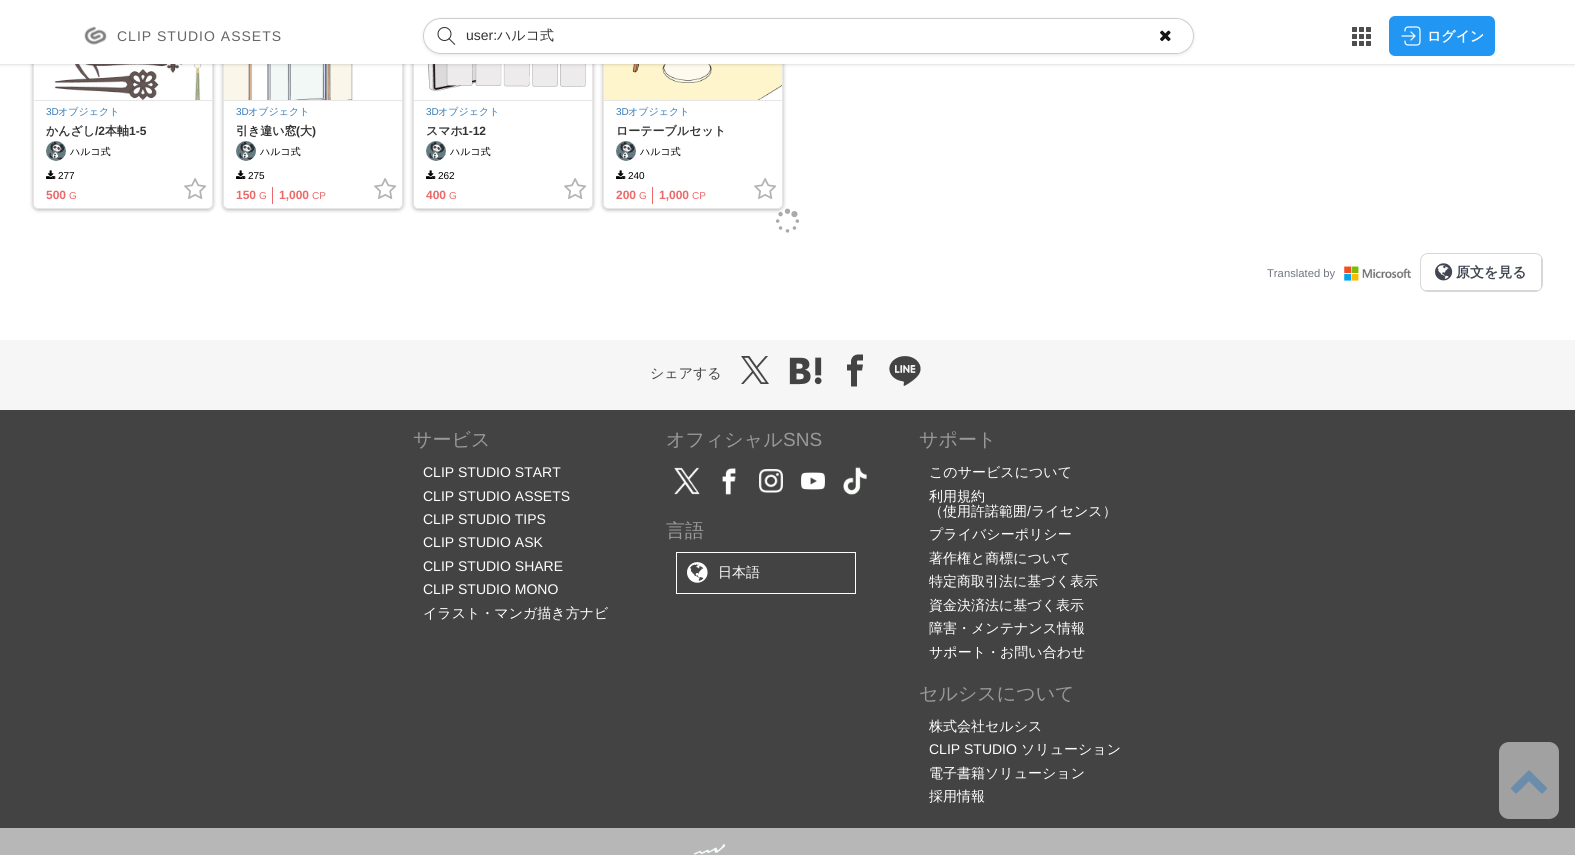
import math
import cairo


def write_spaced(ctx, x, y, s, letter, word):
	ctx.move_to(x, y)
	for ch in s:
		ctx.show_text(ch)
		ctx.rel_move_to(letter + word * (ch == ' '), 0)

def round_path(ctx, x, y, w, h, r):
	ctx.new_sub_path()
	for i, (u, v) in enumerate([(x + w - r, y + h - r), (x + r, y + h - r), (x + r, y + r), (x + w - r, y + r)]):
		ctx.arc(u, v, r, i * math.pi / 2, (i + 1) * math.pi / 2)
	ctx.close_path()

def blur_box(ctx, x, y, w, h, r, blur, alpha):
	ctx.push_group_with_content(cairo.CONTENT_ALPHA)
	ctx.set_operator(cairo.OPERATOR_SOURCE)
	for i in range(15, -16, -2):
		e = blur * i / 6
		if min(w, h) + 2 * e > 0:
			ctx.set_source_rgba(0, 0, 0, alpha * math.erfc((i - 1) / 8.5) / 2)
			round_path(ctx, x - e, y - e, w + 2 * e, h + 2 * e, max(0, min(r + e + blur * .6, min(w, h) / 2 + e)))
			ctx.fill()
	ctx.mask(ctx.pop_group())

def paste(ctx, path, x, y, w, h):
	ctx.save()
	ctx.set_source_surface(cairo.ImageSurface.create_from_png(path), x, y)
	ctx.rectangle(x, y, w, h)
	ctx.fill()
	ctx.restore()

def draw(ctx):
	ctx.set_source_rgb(0.961, 0.961, 0.961)
	ctx.paint()
	ctx.set_source_rgb(1, 1, 1)
	ctx.rectangle(0, 64, 1575, 276)
	ctx.fill()
	ctx.set_source_rgb(0, 0, 0)
	blur_box(ctx, 33, -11, 180, 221, 5, 2, 0.3)
	ctx.set_source_rgb(1, 1, 1)
	round_path(ctx, 33.5, -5.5, 179, 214, 4.5)
	ctx.fill_preserve()
	ctx.set_source_rgb(0.902, 0.902, 0.902)
	ctx.set_line_width(1)
	ctx.stroke()
	paste(ctx, 'media/6.png', 35, 64, 177, 36)
	ctx.set_source_rgb(0, 0, 0)
	blur_box(ctx, 223, -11, 180, 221, 5, 2, 0.3)
	ctx.set_source_rgb(1, 1, 1)
	round_path(ctx, 223.5, -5.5, 179, 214, 4.5)
	ctx.fill_preserve()
	ctx.set_source_rgb(0.902, 0.902, 0.902)
	ctx.stroke()
	paste(ctx, 'media/10.png', 224, 64, 178, 36)
	ctx.set_source_rgb(0, 0, 0)
	blur_box(ctx, 413, -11, 180, 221, 5, 2, 0.3)
	ctx.set_source_rgb(1, 1, 1)
	round_path(ctx, 413.5, -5.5, 179, 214, 4.5)
	ctx.fill_preserve()
	ctx.set_source_rgb(0.902, 0.902, 0.902)
	ctx.stroke()
	paste(ctx, 'media/12.png', 426, 64, 166, 28)
	ctx.set_source_rgb(0, 0, 0)
	blur_box(ctx, 603, -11, 180, 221, 5, 2, 0.3)
	ctx.set_source_rgb(1, 1, 1)
	round_path(ctx, 603.5, -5.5, 179, 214, 4.5)
	ctx.fill_preserve()
	ctx.set_source_rgb(0.902, 0.902, 0.902)
	ctx.stroke()
	paste(ctx, 'media/13.png', 604, 64, 178, 36)
	ctx.set_source_rgb(0.039, 0.051, 0.071)
	blur_box(ctx, 1, 2, 1573, 62, 0, 1, 0.1)
	blur_box(ctx, 0, 1, 1575, 64, 0, 1.5, 0.1)
	ctx.set_source_rgb(1, 1, 1)
	ctx.rectangle(0, 0, 1575, 64)
	ctx.fill()
	paste(ctx, 'media/1.png', 84, 26, 23, 19)
	ctx.select_font_face('Liberation Sans')
	ctx.set_font_size(14)
	ctx.set_source_rgb(0.4, 0.4, 0.4)
	write_spaced(ctx, 117, 41, 'CLIP STUDIO ASSETS', 1, 0)
	ctx.save()
	ctx.set_fill_rule(cairo.FILL_RULE_EVEN_ODD)
	ctx.new_path()
	ctx.move_to(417, 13)
	ctx.line_to(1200, 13)
	ctx.line_to(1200, 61)
	ctx.line_to(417, 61)
	ctx.close_path()
	ctx.move_to(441, 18)
	ctx.line_to(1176, 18)
	ctx.curve_to(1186, 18, 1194, 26, 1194, 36)
	ctx.curve_to(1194, 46, 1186, 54, 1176, 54)
	ctx.line_to(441, 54)
	ctx.curve_to(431, 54, 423, 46, 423, 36)
	ctx.curve_to(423, 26, 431, 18, 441, 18)
	ctx.close_path()
	ctx.clip()
	ctx.set_source_rgb(0.039, 0.051, 0.071)
	blur_box(ctx, 423, 19, 771, 36, 18, 1.5, 0.1)
	ctx.restore()
	round_path(ctx, 423.5, 18.5, 770, 35, 17.5)
	ctx.set_source_rgb(0.8, 0.8, 0.8)
	ctx.stroke()
	paste(ctx, 'media/2.png', 437, 27, 19, 18)
	ctx.set_source_rgb(0.2, 0.2, 0.2)
	ctx.move_to(466, 40)
	ctx.show_text('user:')
	ctx.select_font_face('WenQuanYi Zen Hei Medium')
	ctx.move_to(497, 40)
	ctx.show_text('ハルコ式')
	ctx.save()
	round_path(ctx, 424, 19, 769, 34, 17)
	ctx.clip()
	ctx.set_source_rgb(1, 1, 1)
	round_path(ctx, 1149, 18, 32, 36, 2)
	ctx.fill()
	ctx.restore()
	paste(ctx, 'media/3.png', 1160, 30, 11, 12)
	paste(ctx, 'media/4.png', 1352, 27, 19, 19)
	ctx.set_source_rgb(0.129, 0.588, 0.953)
	round_path(ctx, 1388, 15, 108, 42, 7)
	ctx.fill_preserve()
	ctx.set_source_rgb(1, 1, 1)
	ctx.set_line_width(2)
	ctx.stroke()
	paste(ctx, 'media/5.png', 1401, 26, 20, 20)
	ctx.select_font_face('WenQuanYi Zen Hei', cairo.FONT_SLANT_NORMAL, cairo.FONT_WEIGHT_BOLD)
	ctx.move_to(1427, 41)
	ctx.show_text('ログイン')
	ctx.set_source_rgb(0.902, 0.902, 0.902)
	ctx.rectangle(34, 100, 178, 1)
	ctx.fill()
	ctx.select_font_face('Liberation Sans')
	ctx.set_font_size(10)
	ctx.set_source_rgb(0.2, 0.478, 0.718)
	ctx.move_to(46, 115)
	ctx.show_text('3D')
	ctx.select_font_face('WenQuanYi Zen Hei Medium')
	ctx.move_to(58, 115)
	ctx.show_text('オブジェクト')
	ctx.select_font_face('WenQuanYi Zen Hei', cairo.FONT_SLANT_NORMAL, cairo.FONT_WEIGHT_BOLD)
	ctx.set_font_size(12)
	ctx.set_source_rgb(0.2, 0.2, 0.2)
	ctx.move_to(46, 135)
	ctx.show_text('かんざし')
	ctx.select_font_face('Liberation Sans', cairo.FONT_SLANT_NORMAL, cairo.FONT_WEIGHT_BOLD)
	ctx.move_to(95, 135)
	ctx.show_text('/2')
	ctx.select_font_face('WenQuanYi Zen Hei', cairo.FONT_SLANT_NORMAL, cairo.FONT_WEIGHT_BOLD)
	ctx.move_to(105, 135)
	ctx.show_text('本軸')
	ctx.select_font_face('Liberation Sans', cairo.FONT_SLANT_NORMAL, cairo.FONT_WEIGHT_BOLD)
	ctx.move_to(129, 135)
	ctx.show_text('1-5')
	paste(ctx, 'media/7.png', 46, 141, 20, 20)
	ctx.select_font_face('WenQuanYi Zen Hei Medium')
	ctx.set_font_size(10)
	ctx.set_source_rgb(0, 0, 0)
	ctx.move_to(70, 155)
	ctx.show_text('ハルコ式')
	paste(ctx, 'media/8.png', 46, 170, 10, 9)
	ctx.select_font_face('Liberation Sans')
	ctx.move_to(58, 179)
	ctx.show_text('277')
	ctx.select_font_face('Liberation Sans', cairo.FONT_SLANT_NORMAL, cairo.FONT_WEIGHT_BOLD)
	ctx.set_font_size(12)
	ctx.set_source_rgb(0.929, 0.408, 0.408)
	ctx.move_to(46, 199)
	ctx.show_text('500')
	ctx.select_font_face('Liberation Sans')
	ctx.set_font_size(10)
	ctx.move_to(69, 199)
	ctx.show_text('G')
	paste(ctx, 'media/9.png', 184, 178, 23, 21)
	ctx.set_source_rgb(0.902, 0.902, 0.902)
	ctx.rectangle(224, 100, 178, 1)
	ctx.fill()
	ctx.set_source_rgb(0.2, 0.478, 0.718)
	ctx.move_to(236, 115)
	ctx.show_text('3D')
	ctx.select_font_face('WenQuanYi Zen Hei Medium')
	ctx.move_to(248, 115)
	ctx.show_text('オブジェクト')
	ctx.select_font_face('WenQuanYi Zen Hei', cairo.FONT_SLANT_NORMAL, cairo.FONT_WEIGHT_BOLD)
	ctx.set_font_size(12)
	ctx.set_source_rgb(0.2, 0.2, 0.2)
	ctx.move_to(236, 135)
	ctx.show_text('引き違い窓')
	ctx.select_font_face('Liberation Sans', cairo.FONT_SLANT_NORMAL, cairo.FONT_WEIGHT_BOLD)
	ctx.move_to(296, 135)
	ctx.show_text('(')
	ctx.select_font_face('WenQuanYi Zen Hei', cairo.FONT_SLANT_NORMAL, cairo.FONT_WEIGHT_BOLD)
	ctx.move_to(300, 135)
	ctx.show_text('大')
	ctx.select_font_face('Liberation Sans', cairo.FONT_SLANT_NORMAL, cairo.FONT_WEIGHT_BOLD)
	ctx.move_to(312, 135)
	ctx.show_text(')')
	paste(ctx, 'media/11.png', 236, 141, 20, 20)
	ctx.select_font_face('WenQuanYi Zen Hei Medium')
	ctx.set_font_size(10)
	ctx.set_source_rgb(0, 0, 0)
	ctx.move_to(260, 155)
	ctx.show_text('ハルコ式')
	paste(ctx, 'media/8.png', 236, 170, 10, 9)
	ctx.select_font_face('Liberation Sans')
	ctx.move_to(248, 179)
	ctx.show_text('275')
	ctx.select_font_face('Liberation Sans', cairo.FONT_SLANT_NORMAL, cairo.FONT_WEIGHT_BOLD)
	ctx.set_font_size(12)
	ctx.set_source_rgb(0.929, 0.408, 0.408)
	ctx.move_to(236, 199)
	ctx.show_text('150')
	ctx.select_font_face('Liberation Sans')
	ctx.set_font_size(10)
	ctx.move_to(259, 199)
	ctx.show_text('G')
	ctx.rectangle(272, 187, 1, 17)
	ctx.fill()
	ctx.select_font_face('Liberation Sans', cairo.FONT_SLANT_NORMAL, cairo.FONT_WEIGHT_BOLD)
	ctx.set_font_size(12)
	ctx.move_to(279, 199)
	ctx.show_text('1,000')
	ctx.select_font_face('Liberation Sans')
	ctx.set_font_size(10)
	ctx.move_to(312, 199)
	ctx.show_text('CP')
	paste(ctx, 'media/9.png', 374, 178, 23, 21)
	ctx.set_source_rgb(0.902, 0.902, 0.902)
	ctx.rectangle(414, 100, 178, 1)
	ctx.fill()
	ctx.set_source_rgb(0.2, 0.478, 0.718)
	ctx.move_to(426, 115)
	ctx.show_text('3D')
	ctx.select_font_face('WenQuanYi Zen Hei Medium')
	ctx.move_to(438, 115)
	ctx.show_text('オブジェクト')
	ctx.select_font_face('WenQuanYi Zen Hei', cairo.FONT_SLANT_NORMAL, cairo.FONT_WEIGHT_BOLD)
	ctx.set_font_size(12)
	ctx.set_source_rgb(0.2, 0.2, 0.2)
	ctx.move_to(426, 135)
	ctx.show_text('スマホ')
	ctx.select_font_face('Liberation Sans', cairo.FONT_SLANT_NORMAL, cairo.FONT_WEIGHT_BOLD)
	ctx.move_to(462, 135)
	ctx.show_text('1-12')
	paste(ctx, 'media/7.png', 426, 141, 20, 20)
	ctx.select_font_face('WenQuanYi Zen Hei Medium')
	ctx.set_font_size(10)
	ctx.set_source_rgb(0, 0, 0)
	ctx.move_to(450, 155)
	ctx.show_text('ハルコ式')
	paste(ctx, 'media/8.png', 426, 170, 10, 9)
	ctx.select_font_face('Liberation Sans')
	ctx.move_to(438, 179)
	ctx.show_text('262')
	ctx.select_font_face('Liberation Sans', cairo.FONT_SLANT_NORMAL, cairo.FONT_WEIGHT_BOLD)
	ctx.set_font_size(12)
	ctx.set_source_rgb(0.929, 0.408, 0.408)
	ctx.move_to(426, 199)
	ctx.show_text('400')
	ctx.select_font_face('Liberation Sans')
	ctx.set_font_size(10)
	ctx.move_to(449, 199)
	ctx.show_text('G')
	paste(ctx, 'media/9.png', 564, 178, 23, 21)
	ctx.set_source_rgb(0.902, 0.902, 0.902)
	ctx.rectangle(604, 100, 178, 1)
	ctx.fill()
	ctx.set_source_rgb(0.2, 0.478, 0.718)
	ctx.move_to(616, 115)
	ctx.show_text('3D')
	ctx.select_font_face('WenQuanYi Zen Hei Medium')
	ctx.move_to(628, 115)
	ctx.show_text('オブジェクト')
	ctx.select_font_face('WenQuanYi Zen Hei', cairo.FONT_SLANT_NORMAL, cairo.FONT_WEIGHT_BOLD)
	ctx.set_font_size(12)
	ctx.set_source_rgb(0.2, 0.2, 0.2)
	ctx.move_to(616, 135)
	ctx.show_text('ローテーブルセット')
	paste(ctx, 'media/14.png', 616, 141, 20, 20)
	ctx.select_font_face('WenQuanYi Zen Hei Medium')
	ctx.set_font_size(10)
	ctx.set_source_rgb(0, 0, 0)
	ctx.move_to(640, 155)
	ctx.show_text('ハルコ式')
	paste(ctx, 'media/8.png', 616, 170, 10, 9)
	ctx.select_font_face('Liberation Sans')
	ctx.move_to(628, 179)
	ctx.show_text('240')
	ctx.select_font_face('Liberation Sans', cairo.FONT_SLANT_NORMAL, cairo.FONT_WEIGHT_BOLD)
	ctx.set_font_size(12)
	ctx.set_source_rgb(0.929, 0.408, 0.408)
	ctx.move_to(616, 199)
	ctx.show_text('200')
	ctx.select_font_face('Liberation Sans')
	ctx.set_font_size(10)
	ctx.move_to(639, 199)
	ctx.show_text('G')
	ctx.rectangle(652, 187, 1, 17)
	ctx.fill()
	ctx.select_font_face('Liberation Sans', cairo.FONT_SLANT_NORMAL, cairo.FONT_WEIGHT_BOLD)
	ctx.set_font_size(12)
	ctx.move_to(659, 199)
	ctx.show_text('1,000')
	ctx.select_font_face('Liberation Sans')
	ctx.set_font_size(10)
	ctx.move_to(692, 199)
	ctx.show_text('CP')
	paste(ctx, 'media/9.png', 754, 178, 23, 21)
	paste(ctx, 'media/15.png', 776, 208, 23, 25)
	ctx.set_font_size(11.25)
	ctx.set_source_rgb(0.443, 0.463, 0.502)
	ctx.move_to(1267, 277)
	ctx.show_text('Translated by')
	paste(ctx, 'media/16.png', 1344, 266, 68, 15)
	round_path(ctx, 1420.5, 253.5, 122, 38, 7.5)
	ctx.set_source_rgb(0.835, 0.843, 0.855)
	ctx.set_line_width(1)
	ctx.stroke()
	ctx.rectangle(1541, 257, 1, 31)
	ctx.fill()
	ctx.rectangle(1424, 290, 115, 1)
	ctx.fill()
	paste(ctx, 'media/17.png', 1435, 263, 18, 18)
	ctx.select_font_face('WenQuanYi Zen Hei', cairo.FONT_SLANT_NORMAL, cairo.FONT_WEIGHT_BOLD)
	ctx.set_font_size(14)
	ctx.set_source_rgb(0.255, 0.275, 0.318)
	ctx.move_to(1456, 277)
	ctx.show_text('原文を見る')
	ctx.select_font_face('WenQuanYi Zen Hei Medium')
	ctx.set_source_rgb(0.263, 0.263, 0.263)
	ctx.move_to(650, 378)
	ctx.show_text('シェアする')
	paste(ctx, 'media/18.png', 741, 356, 28, 28)
	paste(ctx, 'media/19.png', 789, 357, 33, 28)
	paste(ctx, 'media/20.png', 847, 354, 16, 33)
	paste(ctx, 'media/21.png', 889, 356, 32, 30)
	ctx.rectangle(0, 410, 1575, 418)
	ctx.fill()
	ctx.set_font_size(19)
	ctx.set_source_rgb(0.6, 0.6, 0.6)
	ctx.move_to(413, 446)
	ctx.show_text('サービス')
	ctx.select_font_face('Liberation Sans')
	ctx.set_font_size(14)
	ctx.set_source_rgb(1, 1, 1)
	for x, y, s in [
		(423, 477, 'CLIP STUDIO START'),
		(423, 501, 'CLIP STUDIO ASSETS'),
		(423, 524, 'CLIP STUDIO TIPS'),
		(423, 547, 'CLIP STUDIO ASK'),
		(423, 571, 'CLIP STUDIO SHARE'),
		(423, 594, 'CLIP STUDIO MONO'),
	]:
		ctx.move_to(x, y)
		ctx.show_text(s)
	ctx.select_font_face('WenQuanYi Zen Hei Medium')
	ctx.move_to(423, 618)
	ctx.show_text('イラスト・マンガ描き方ナビ')
	ctx.set_font_size(19)
	ctx.set_source_rgb(0.6, 0.6, 0.6)
	ctx.move_to(666, 446)
	ctx.show_text('オフィシャル')
	ctx.select_font_face('Liberation Sans')
	ctx.move_to(783, 446)
	ctx.show_text('SNS')
	paste(ctx, 'media/22.png', 674, 467, 26, 28)
	paste(ctx, 'media/23.png', 722, 468, 14, 27)
	paste(ctx, 'media/24.png', 759, 469, 24, 24)
	paste(ctx, 'media/25.png', 801, 472, 24, 18)
	paste(ctx, 'media/26.png', 843, 467, 24, 28)
	ctx.select_font_face('WenQuanYi Zen Hei Medium')
	ctx.move_to(666, 537)
	ctx.show_text('言語')
	ctx.rectangle(676.5, 552.5, 179, 41)
	ctx.set_source_rgb(1, 1, 1)
	ctx.stroke()
	paste(ctx, 'media/27.png', 687, 562, 21, 21)
	ctx.set_font_size(14)
	ctx.move_to(718, 577)
	ctx.show_text('日本語')
	ctx.set_font_size(19)
	ctx.set_source_rgb(0.6, 0.6, 0.6)
	ctx.move_to(919, 446)
	ctx.show_text('サポート')
	ctx.set_font_size(14)
	ctx.set_source_rgb(1, 1, 1)
	for x, y, s in [
		(929, 477, 'このサービスについて'),
		(929, 501, '利用規約'),
		(929, 516, '（使用許諾範囲'),
	]:
		ctx.move_to(x, y)
		ctx.show_text(s)
	ctx.select_font_face('Liberation Sans')
	ctx.move_to(1027, 516)
	ctx.show_text('/')
	ctx.select_font_face('WenQuanYi Zen Hei Medium')
	for x, y, s in [
		(1031, 516, 'ライセンス）'),
		(929, 539, 'プライバシーポリシー'),
		(929, 563, '著作権と商標について'),
		(929, 586, '特定商取引法に基づく表示'),
		(929, 610, '資金決済法に基づく表示'),
		(929, 633, '障害・メンテナンス情報'),
		(929, 657, 'サポート・お問い合わせ'),
	]:
		ctx.move_to(x, y)
		ctx.show_text(s)
	ctx.set_font_size(19)
	ctx.set_source_rgb(0.6, 0.6, 0.6)
	ctx.move_to(919, 700)
	ctx.show_text('セルシスについて')
	ctx.set_font_size(14)
	ctx.set_source_rgb(1, 1, 1)
	ctx.move_to(929, 731)
	ctx.show_text('株式会社セルシス')
	ctx.select_font_face('Liberation Sans')
	ctx.move_to(929, 754)
	ctx.show_text('CLIP STUDIO')
	ctx.select_font_face('WenQuanYi Zen Hei Medium')
	for x, y, s in [
		(1021, 754, 'ソリューション'),
		(929, 778, '電子書籍ソリューション'),
		(929, 801, '採用情報'),
	]:
		ctx.move_to(x, y)
		ctx.show_text(s)
	ctx.set_source_rgb(0.718, 0.718, 0.718)
	ctx.rectangle(0, 828, 1575, 27)
	ctx.fill()
	paste(ctx, 'media/28.png', 694, 844, 31, 11)
	ctx.set_source_rgb(0.631, 0.631, 0.631)
	round_path(ctx, 1499, 742, 60, 77, 10)
	ctx.fill()
	paste(ctx, 'media/29.png', 1511, 770, 36, 24)


surface = cairo.ImageSurface(cairo.FORMAT_RGB24, 1575, 855)
ctx = cairo.Context(surface)
options = cairo.FontOptions()
options.set_hint_metrics(cairo.HINT_METRICS_OFF)
options.set_hint_style(cairo.HINT_STYLE_NONE)
ctx.set_font_options(options)
ctx.set_miter_limit(4)
draw(ctx)
surface.write_to_png('image.png')
